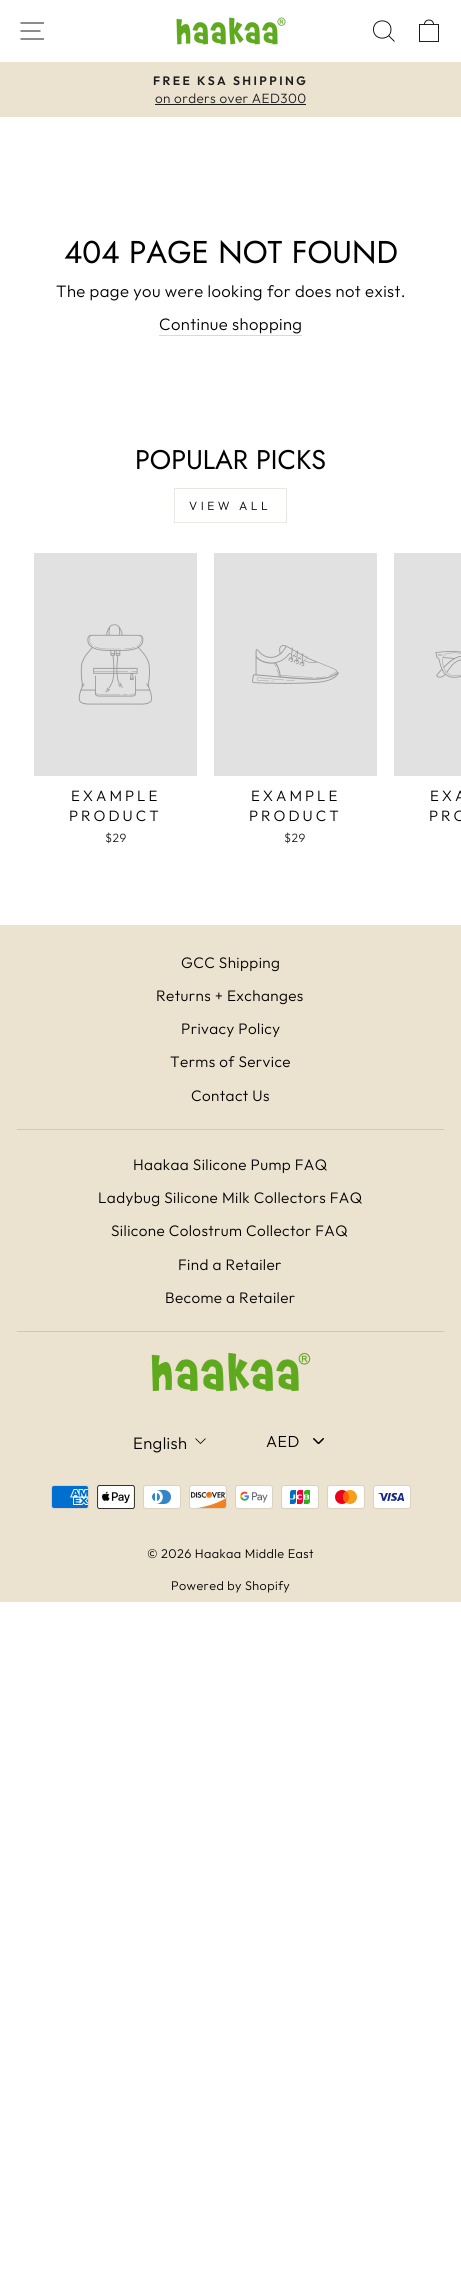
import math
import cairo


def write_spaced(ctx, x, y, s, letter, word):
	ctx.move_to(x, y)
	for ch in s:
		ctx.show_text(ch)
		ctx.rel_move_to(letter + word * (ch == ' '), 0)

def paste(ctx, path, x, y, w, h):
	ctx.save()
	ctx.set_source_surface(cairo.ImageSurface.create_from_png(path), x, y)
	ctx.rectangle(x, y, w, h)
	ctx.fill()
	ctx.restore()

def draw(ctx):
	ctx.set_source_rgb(1, 1, 1)
	ctx.paint()
	ctx.new_path()
	ctx.move_to(20.5, 23)
	ctx.line_to(44, 23)
	ctx.move_to(20.5, 31)
	ctx.line_to(40.5, 31)
	ctx.move_to(20.5, 39)
	ctx.line_to(44, 39)
	ctx.set_source_rgb(0, 0, 0)
	ctx.set_line_width(0.9)
	ctx.stroke()
	paste(ctx, 'media/1.png', 176, 17, 110, 28)
	ctx.new_path()
	ctx.move_to(391, 29.5)
	ctx.curve_to(391, 41, 373.5, 41, 373.5, 29.5)
	ctx.curve_to(373.5, 18, 391, 18, 391, 29.5)
	ctx.close_path()
	ctx.move_to(394.5, 41.5)
	ctx.line_to(388.5, 35.5)
	ctx.stroke()
	ctx.new_path()
	ctx.move_to(419.5, 24.5)
	ctx.line_to(438.5, 24.5)
	ctx.line_to(438.5, 41.5)
	ctx.line_to(419.5, 41.5)
	ctx.close_path()
	ctx.move_to(424.5, 24.5)
	ctx.curve_to(424.5, 18.5, 433.5, 18.5, 433.5, 24.5)
	ctx.stroke()
	ctx.set_source_rgb(0.925, 0.886, 0.816)
	ctx.rectangle(0, 62, 461, 55)
	ctx.fill()
	ctx.select_font_face('Outfit SemiBold')
	ctx.set_font_size(12.2)
	ctx.set_source_rgb(0.11, 0.114, 0.114)
	write_spaced(ctx, 153, 85, 'FREE KSA SHIPPING', 2.4, 0)
	ctx.select_font_face('Outfit Light')
	ctx.set_font_size(13.5)
	write_spaced(ctx, 155, 103, 'on orders over AED300', 0.4, 0)
	ctx.rectangle(155, 104, 151, 1)
	ctx.fill()
	ctx.select_font_face('Jost')
	ctx.set_font_size(31.5)
	ctx.set_source_rgb(0, 0, 0)
	ctx.move_to(64, 263)
	ctx.show_text('404 PAGE NOT FOUND')
	ctx.select_font_face('Outfit Light')
	ctx.set_font_size(16.6)
	write_spaced(ctx, 56, 297, 'The page you were looking for does not exist.', 0.4, 0)
	ctx.set_source_rgb(0.851, 0.851, 0.851)
	ctx.rectangle(159, 335, 143, 1)
	ctx.fill()
	ctx.set_source_rgb(0, 0, 0)
	write_spaced(ctx, 159, 330, 'Continue shopping', 0.4, 0)
	ctx.select_font_face('Jost')
	ctx.set_font_size(27)
	ctx.move_to(135, 469)
	ctx.show_text('POPULAR PICKS')
	ctx.rectangle(174.5, 488.5, 112, 34)
	ctx.set_source_rgb(0.91, 0.91, 0.882)
	ctx.set_line_width(1)
	ctx.stroke()
	ctx.select_font_face('Outfit Light')
	ctx.set_font_size(12)
	ctx.set_source_rgb(0, 0, 0)
	write_spaced(ctx, 189, 510, 'VIEW ALL', 3.5, 0)
	ctx.set_source_rgb(0.882, 0.882, 0.882)
	ctx.rectangle(34, 553, 163, 223)
	ctx.fill()
	paste(ctx, 'media/2.png', 78, 624, 74, 81)
	ctx.set_font_size(15)
	ctx.set_source_rgb(0, 0, 0)
	write_spaced(ctx, 71, 801, 'EXAMPLE', 3, 0)
	write_spaced(ctx, 69, 821, 'PRODUCT', 3, 0)
	ctx.set_font_size(12)
	ctx.set_source_rgb(0.11, 0.114, 0.114)
	write_spaced(ctx, 105, 842, '$29', 0.4, 0)
	ctx.set_source_rgb(0.882, 0.882, 0.882)
	ctx.rectangle(214, 553, 163, 223)
	ctx.fill()
	paste(ctx, 'media/3.png', 252, 645, 87, 39)
	ctx.set_font_size(15)
	ctx.set_source_rgb(0, 0, 0)
	write_spaced(ctx, 251, 801, 'EXAMPLE', 3, 0)
	write_spaced(ctx, 249, 821, 'PRODUCT', 3, 0)
	ctx.set_font_size(12)
	ctx.set_source_rgb(0.11, 0.114, 0.114)
	write_spaced(ctx, 284, 842, '$29', 0.4, 0)
	ctx.set_source_rgb(0.882, 0.882, 0.882)
	ctx.rectangle(394, 553, 67, 223)
	ctx.fill()
	paste(ctx, 'media/4.png', 435, 651, 26, 27)
	ctx.set_font_size(15)
	ctx.set_source_rgb(0, 0, 0)
	write_spaced(ctx, 430, 801, 'EXA', 3, 0)
	write_spaced(ctx, 429, 821, 'PRO', 3, 0)
	ctx.set_source_rgb(0.925, 0.886, 0.816)
	ctx.rectangle(0, 925, 461, 677)
	ctx.fill()
	ctx.set_font_size(15.25)
	ctx.set_source_rgb(0, 0, 0)
	for x, y, s in [
		(181, 968, 'GCC Shipping'),
		(156, 1001, 'Returns + Exchanges'),
		(181, 1034, 'Privacy Policy'),
		(170, 1067, 'Terms of Service'),
		(191, 1101, 'Contact Us'),
	]:
		write_spaced(ctx, x, y, s, 0.4, 0)
	ctx.set_source_rgb(0.816, 0.78, 0.718)
	ctx.rectangle(17, 1129, 427, 1)
	ctx.fill()
	ctx.set_source_rgb(0, 0, 0)
	for x, y, s in [
		(133, 1170, 'Haakaa Silicone Pump FAQ'),
		(98, 1203, 'Ladybug Silicone Milk Collectors FAQ'),
		(111, 1236, 'Silicone Colostrum Collector FAQ'),
		(178, 1270, 'Find a Retailer'),
		(165, 1303, 'Become a Retailer'),
	]:
		write_spaced(ctx, x, y, s, 0.4, 0)
	ctx.set_source_rgb(0.816, 0.78, 0.718)
	ctx.rectangle(17, 1331, 427, 1)
	ctx.fill()
	paste(ctx, 'media/5.png', 151, 1352, 160, 40)
	ctx.set_font_size(16.6)
	ctx.set_source_rgb(0, 0, 0)
	write_spaced(ctx, 133, 1449, 'English', 0.4, 0)
	ctx.new_path()
	ctx.move_to(195.5, 1438.5)
	ctx.line_to(200.5, 1443.5)
	ctx.line_to(205.5, 1438.5)
	ctx.set_line_width(0.8)
	ctx.stroke()
	paste(ctx, 'media/6.png', 313, 1438, 11, 6)
	ctx.set_font_size(16)
	write_spaced(ctx, 266, 1447, 'AED', 0.5, 0)
	paste(ctx, 'media/7.png', 51, 1485, 38, 24)
	paste(ctx, 'media/8.png', 97, 1485, 38, 24)
	paste(ctx, 'media/9.png', 143, 1485, 38, 24)
	paste(ctx, 'media/10.png', 189, 1485, 38, 24)
	paste(ctx, 'media/11.png', 235, 1485, 38, 24)
	paste(ctx, 'media/12.png', 281, 1485, 38, 24)
	paste(ctx, 'media/13.png', 327, 1485, 38, 24)
	paste(ctx, 'media/14.png', 373, 1485, 38, 24)
	ctx.set_font_size(12.6)
	write_spaced(ctx, 147, 1558, '© 2026 Haakaa Middle East', 0.4, 0)
	write_spaced(ctx, 171, 1590, 'Powered by Shopify', 0.4, 0)


surface = cairo.ImageSurface(cairo.FORMAT_RGB24, 461, 2295)
ctx = cairo.Context(surface)
options = cairo.FontOptions()
options.set_hint_metrics(cairo.HINT_METRICS_OFF)
options.set_hint_style(cairo.HINT_STYLE_NONE)
ctx.set_font_options(options)
ctx.set_miter_limit(4)
draw(ctx)
surface.write_to_png('image.png')
